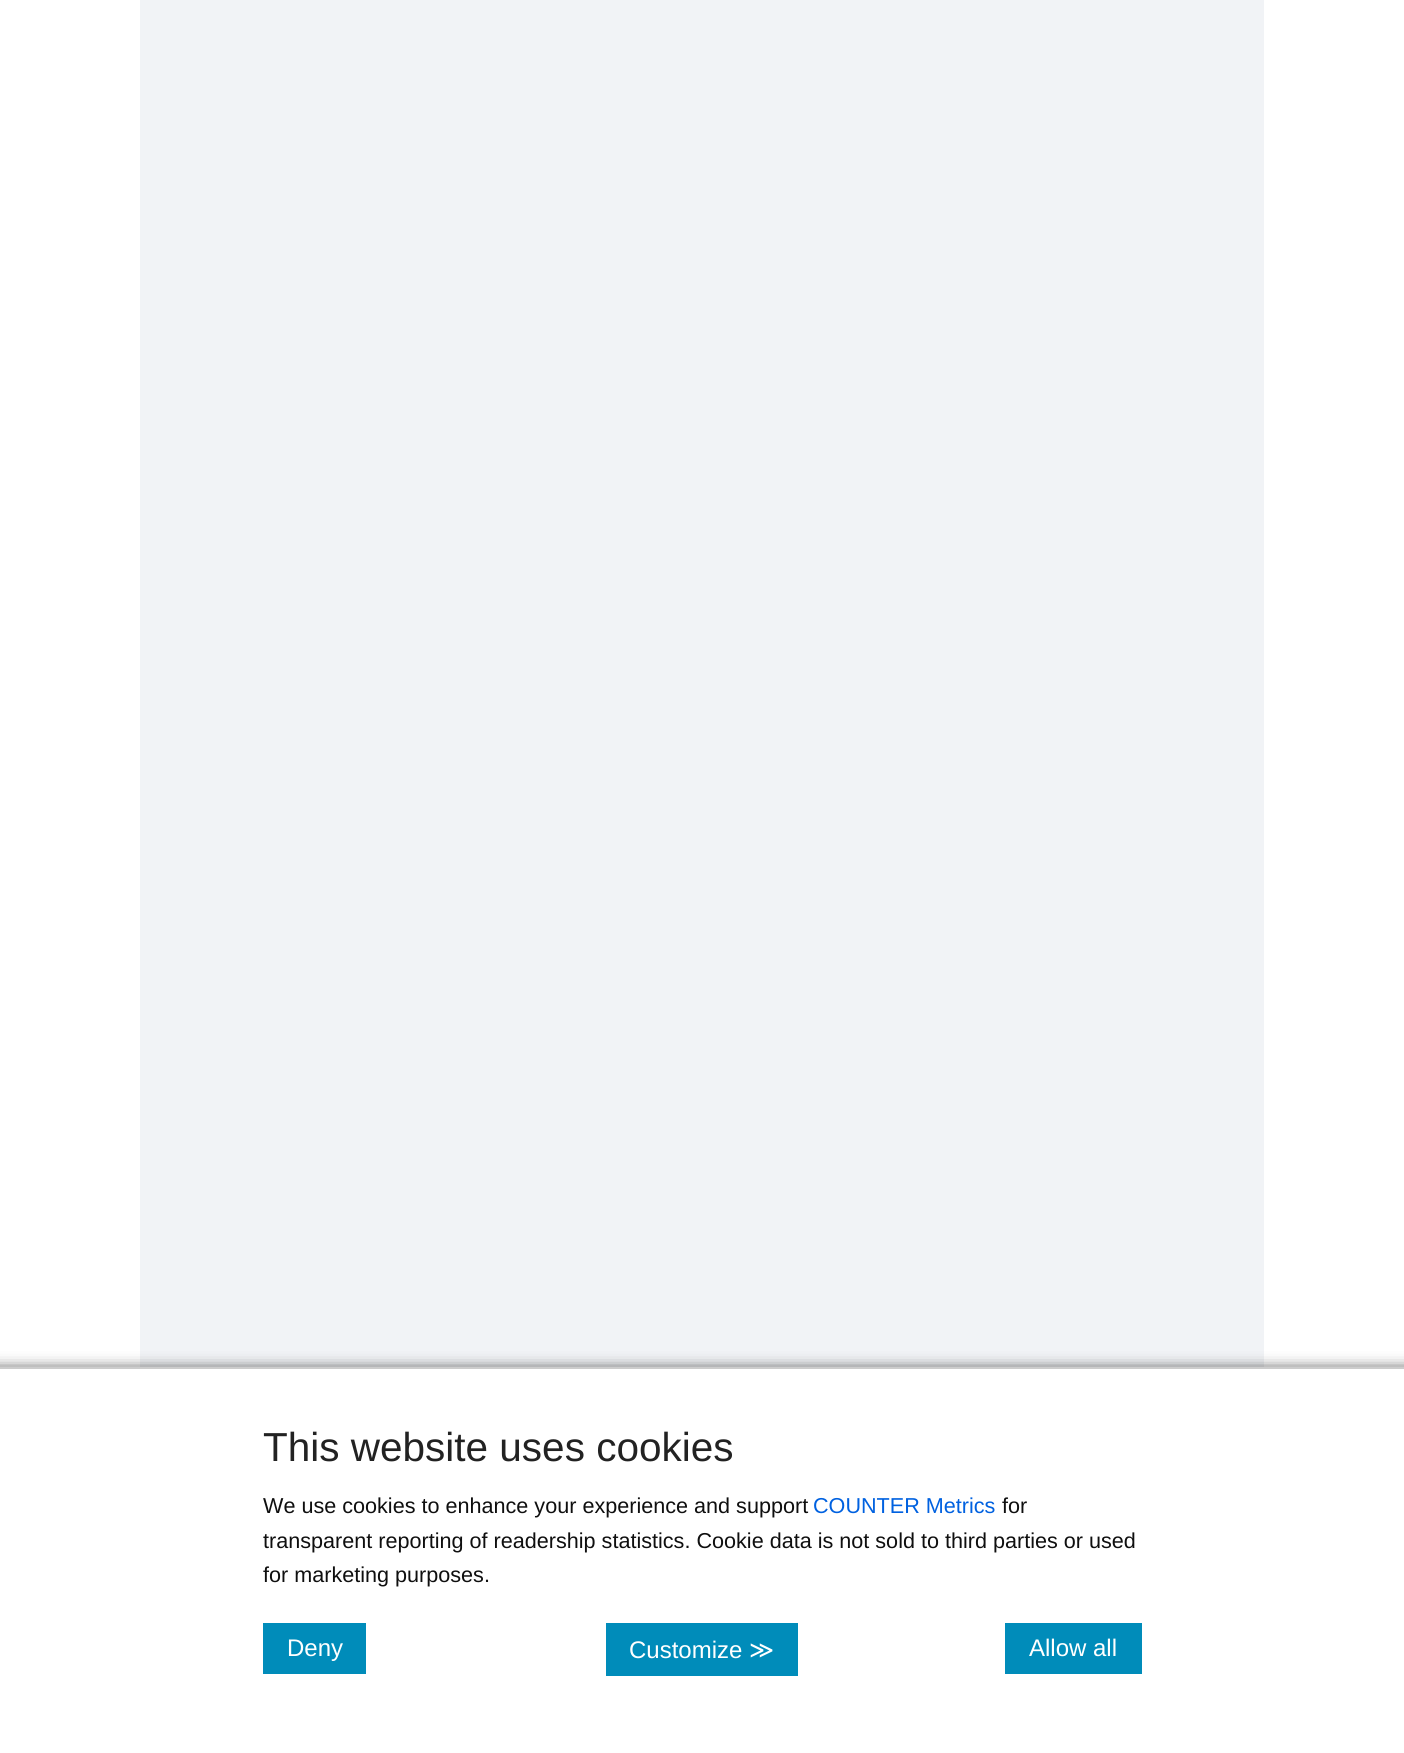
import math
import cairo


def round_path(ctx, x, y, w, h, r):
	ctx.new_sub_path()
	for i, (u, v) in enumerate([(x + w - r, y + h - r), (x + r, y + h - r), (x + r, y + r), (x + w - r, y + r)]):
		ctx.arc(u, v, r, i * math.pi / 2, (i + 1) * math.pi / 2)
	ctx.close_path()

def blur_box(ctx, x, y, w, h, r, blur, alpha):
	ctx.push_group_with_content(cairo.CONTENT_ALPHA)
	ctx.set_operator(cairo.OPERATOR_SOURCE)
	for i in range(15, -16, -2):
		e = blur * i / 6
		if min(w, h) + 2 * e > 0:
			ctx.set_source_rgba(0, 0, 0, alpha * math.erfc((i - 1) / 8.5) / 2)
			round_path(ctx, x - e, y - e, w + 2 * e, h + 2 * e, max(0, min(r + e + blur * .6, min(w, h) / 2 + e)))
			ctx.fill()
	ctx.mask(ctx.pop_group())

def draw(ctx):
	ctx.set_source_rgb(1, 1, 1)
	ctx.paint()
	ctx.set_source_rgb(0.945, 0.953, 0.961)
	ctx.rectangle(140, 0, 1124, 1367)
	ctx.fill()
	ctx.set_source_rgb(0, 0, 0)
	blur_box(ctx, -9, 1371, 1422, 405, 0, 8, 1)
	ctx.set_source_rgb(1, 1, 1)
	ctx.rectangle(0, 1369, 1404, 384)
	ctx.fill()
	ctx.set_source_rgb(0.8, 0.8, 0.8)
	ctx.rectangle(0, 1367, 1404, 2)
	ctx.fill()
	ctx.select_font_face('Liberation Sans')
	ctx.set_font_size(40.5)
	ctx.set_source_rgb(0.133, 0.133, 0.133)
	ctx.move_to(263, 1461)
	ctx.show_text('This website uses cookies')
	ctx.set_font_size(21.6)
	ctx.set_source_rgb(0.059, 0.059, 0.059)
	ctx.move_to(263, 1513)
	ctx.show_text('We use cookies to enhance your experience and support')
	ctx.set_source_rgb(0, 0.38, 0.878)
	ctx.move_to(813, 1513)
	ctx.show_text('COUNTER Metrics')
	ctx.set_source_rgb(0.059, 0.059, 0.059)
	for x, y, s in [
		(1002, 1513, 'for'),
		(263, 1548, 'transparent reporting of readership statistics. Cookie data is not sold to third parties or used'),
		(263, 1582, 'for marketing purposes.'),
	]:
		ctx.move_to(x, y)
		ctx.show_text(s)
	ctx.set_source_rgb(0, 0.549, 0.729)
	ctx.rectangle(263, 1623, 103, 51)
	ctx.fill()
	ctx.set_font_size(24)
	ctx.set_source_rgb(1, 1, 1)
	ctx.move_to(287, 1656)
	ctx.show_text('Deny')
	ctx.set_source_rgb(0, 0.549, 0.729)
	ctx.rectangle(606, 1623, 192, 53)
	ctx.fill()
	ctx.set_source_rgb(1, 1, 1)
	ctx.move_to(629, 1658)
	ctx.show_text('Customize')
	ctx.select_font_face('DejaVu Sans')
	ctx.move_to(749, 1658)
	ctx.show_text('≫')
	ctx.set_source_rgb(0, 0.549, 0.729)
	ctx.rectangle(1005, 1623, 137, 51)
	ctx.fill()
	ctx.select_font_face('Liberation Sans')
	ctx.set_source_rgb(1, 1, 1)
	ctx.move_to(1029, 1656)
	ctx.show_text('Allow all')


surface = cairo.ImageSurface(cairo.FORMAT_RGB24, 1404, 1753)
ctx = cairo.Context(surface)
options = cairo.FontOptions()
options.set_hint_metrics(cairo.HINT_METRICS_OFF)
options.set_hint_style(cairo.HINT_STYLE_NONE)
ctx.set_font_options(options)
ctx.set_miter_limit(4)
draw(ctx)
surface.write_to_png('image.png')
